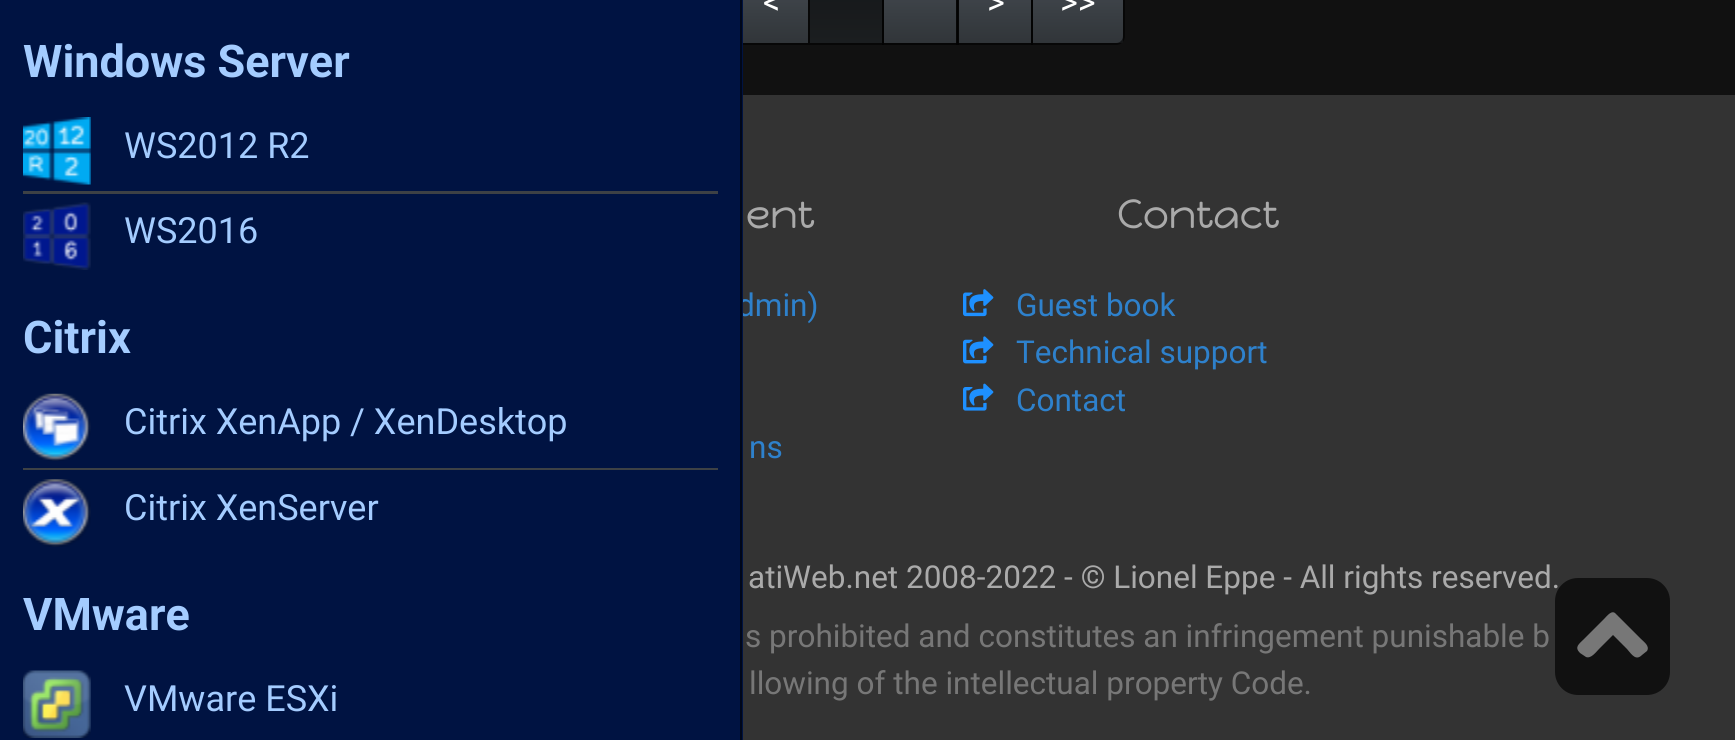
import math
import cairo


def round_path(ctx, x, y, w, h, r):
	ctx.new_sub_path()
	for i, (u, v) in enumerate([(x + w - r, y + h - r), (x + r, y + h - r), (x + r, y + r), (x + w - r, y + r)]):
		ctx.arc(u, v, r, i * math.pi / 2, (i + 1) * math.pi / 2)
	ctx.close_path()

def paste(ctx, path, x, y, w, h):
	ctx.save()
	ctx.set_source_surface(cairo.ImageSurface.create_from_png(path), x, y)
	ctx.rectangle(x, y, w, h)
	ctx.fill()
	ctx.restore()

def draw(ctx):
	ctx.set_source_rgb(0.067, 0.067, 0.067)
	ctx.paint()
	gradient = cairo.LinearGradient(772, -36, 772, 43)
	gradient.add_color_stop_rgba(0, 0.282, 0.306, 0.333, 1)
	gradient.add_color_stop_rgba(0.6, 0.227, 0.247, 0.267, 1)
	gradient.add_color_stop_rgba(1, 0.192, 0.208, 0.224, 1)
	ctx.set_source(gradient)
	ctx.rectangle(743, 0, 65, 43)
	ctx.fill()
	ctx.rectangle(735, -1, 74, 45)
	ctx.set_source_rgba(0, 0, 0, 0.6)
	ctx.stroke()
	ctx.set_source_rgb(0.2, 0.2, 0.2)
	ctx.rectangle(743, 95, 992, 645)
	ctx.fill()
	ctx.select_font_face('Roboto')
	ctx.set_font_size(31.5)
	ctx.set_source_rgb(0.18, 0.506, 0.8)
	ctx.move_to(737, 316)
	ctx.show_text('dmin)')
	ctx.set_source_rgb(0, 0.078, 0.259)
	ctx.rectangle(0, 0, 743, 740)
	ctx.fill()
	ctx.set_source_rgb(0, 0.031, 0.102)
	ctx.rectangle(740, 0, 2, 740)
	ctx.fill()
	ctx.select_font_face('Roboto', cairo.FONT_SLANT_NORMAL, cairo.FONT_WEIGHT_BOLD)
	ctx.set_font_size(45)
	ctx.set_source_rgb(0.643, 0.8, 1)
	ctx.move_to(23, 77)
	ctx.show_text('Windows Server')
	ctx.set_source_rgb(0.239, 0.255, 0.271)
	ctx.new_path()
	ctx.move_to(23, 191)
	ctx.line_to(23, 194)
	ctx.line_to(718, 194)
	ctx.line_to(718, 108)
	ctx.line_to(718, 191)
	ctx.close_path()
	ctx.fill()
	paste(ctx, 'media/1.png', 23, 117, 68, 68)
	ctx.select_font_face('Roboto')
	ctx.set_font_size(36)
	ctx.set_source_rgb(0.643, 0.8, 1)
	ctx.move_to(124, 158)
	ctx.show_text('WS2012 R2')
	paste(ctx, 'media/2.png', 23, 202, 68, 68)
	ctx.move_to(124, 243)
	ctx.show_text('WS2016')
	ctx.select_font_face('Roboto', cairo.FONT_SLANT_NORMAL, cairo.FONT_WEIGHT_BOLD)
	ctx.set_font_size(45)
	ctx.move_to(23, 353)
	ctx.show_text('Citrix')
	ctx.set_source_rgb(0.239, 0.255, 0.271)
	ctx.new_path()
	ctx.move_to(23, 468)
	ctx.line_to(23, 470)
	ctx.line_to(718, 470)
	ctx.line_to(718, 385)
	ctx.line_to(718, 468)
	ctx.close_path()
	ctx.fill()
	paste(ctx, 'media/3.png', 23, 393, 68, 68)
	ctx.select_font_face('Roboto')
	ctx.set_font_size(36)
	ctx.set_source_rgb(0.643, 0.8, 1)
	ctx.move_to(124, 434)
	ctx.show_text('Citrix XenApp / XenDesktop')
	paste(ctx, 'media/4.png', 23, 479, 68, 68)
	ctx.move_to(124, 520)
	ctx.show_text('Citrix XenServer')
	ctx.select_font_face('Roboto', cairo.FONT_SLANT_NORMAL, cairo.FONT_WEIGHT_BOLD)
	ctx.set_font_size(45)
	ctx.move_to(23, 630)
	ctx.show_text('VMware')
	paste(ctx, 'media/5.png', 23, 670, 68, 68)
	ctx.select_font_face('Roboto')
	ctx.set_font_size(36)
	ctx.move_to(124, 711)
	ctx.show_text('VMware ESXi')
	ctx.set_font_size(34)
	ctx.set_source_rgb(1, 1, 1)
	ctx.move_to(763, 14)
	ctx.show_text('<')
	gradient = cairo.LinearGradient(846, -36, 846, 43)
	gradient.add_color_stop_rgba(0, 0.063, 0.067, 0.071, 1)
	gradient.add_color_stop_rgba(0.4, 0.09, 0.098, 0.106, 1)
	gradient.add_color_stop_rgba(1, 0.106, 0.118, 0.125, 1)
	ctx.set_source(gradient)
	ctx.rectangle(810, 0, 72, 43)
	ctx.fill()
	gradient = cairo.LinearGradient(920, -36, 920, 43)
	gradient.add_color_stop_rgba(0, 0.282, 0.306, 0.333, 1)
	gradient.add_color_stop_rgba(0.6, 0.227, 0.247, 0.267, 1)
	gradient.add_color_stop_rgba(1, 0.192, 0.208, 0.224, 1)
	ctx.set_source(gradient)
	ctx.rectangle(884, 0, 72, 43)
	ctx.fill()
	ctx.rectangle(883, -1, 75, 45)
	ctx.set_source_rgb(0.027, 0.027, 0.027)
	ctx.stroke()
	ctx.set_source_rgb(0.012, 0.012, 0.012)
	ctx.new_path()
	ctx.move_to(884, -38)
	ctx.line_to(884, 45)
	ctx.line_to(882, 43)
	ctx.line_to(882, -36)
	ctx.close_path()
	ctx.fill()
	ctx.set_source_rgba(0, 0, 0, 0.6)
	ctx.new_path()
	ctx.move_to(884, 45)
	ctx.line_to(810, 45)
	ctx.line_to(810, 43)
	ctx.line_to(882, 43)
	ctx.close_path()
	ctx.fill()
	gradient = cairo.LinearGradient(995, -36, 995, 43)
	gradient.add_color_stop_rgba(0, 0.282, 0.306, 0.333, 1)
	gradient.add_color_stop_rgba(0.6, 0.227, 0.247, 0.267, 1)
	gradient.add_color_stop_rgba(1, 0.192, 0.208, 0.224, 1)
	ctx.set_source(gradient)
	ctx.rectangle(959, 0, 72, 43)
	ctx.fill()
	ctx.rectangle(957, -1, 75, 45)
	ctx.set_source_rgba(0, 0, 0, 0.6)
	ctx.stroke()
	ctx.set_source_rgb(1, 1, 1)
	ctx.move_to(987, 14)
	ctx.show_text('>')
	ctx.save()
	round_path(ctx, 734, -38, 391, 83, 9)
	ctx.clip()
	ctx.new_path()
	ctx.move_to(1031, -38)
	ctx.line_to(1116, -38)
	ctx.curve_to(1121, -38, 1125, -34, 1125, -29)
	ctx.line_to(1125, 36)
	ctx.curve_to(1125, 41, 1121, 45, 1116, 45)
	ctx.line_to(1031, 45)
	ctx.close_path()
	ctx.clip()
	gradient = cairo.LinearGradient(1078, -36, 1078, 43)
	gradient.add_color_stop_rgba(0, 0.282, 0.306, 0.333, 1)
	gradient.add_color_stop_rgba(0.6, 0.227, 0.247, 0.267, 1)
	gradient.add_color_stop_rgba(1, 0.192, 0.208, 0.224, 1)
	ctx.set_source(gradient)
	ctx.rectangle(1033, 0, 90, 43)
	ctx.fill()
	ctx.restore()
	ctx.new_path()
	ctx.move_to(1032, -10)
	ctx.line_to(1116, -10)
	ctx.curve_to(1120.5, -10, 1124, -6.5, 1124, -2)
	ctx.line_to(1124, 36)
	ctx.curve_to(1124, 40.5, 1120.5, 44, 1116, 44)
	ctx.line_to(1032, 44)
	ctx.close_path()
	ctx.set_source_rgba(0, 0, 0, 0.6)
	ctx.stroke()
	ctx.set_source_rgb(1, 1, 1)
	ctx.move_to(1060, 14)
	ctx.show_text('>>')
	ctx.select_font_face('Happy Monkey')
	ctx.set_font_size(40.5)
	ctx.set_source_rgb(0.667, 0.667, 0.667)
	ctx.move_to(746, 228)
	ctx.show_text('ent')
	ctx.select_font_face('Roboto')
	ctx.set_font_size(31.5)
	ctx.set_source_rgb(0.18, 0.506, 0.8)
	ctx.move_to(749, 458)
	ctx.show_text('ns')
	ctx.select_font_face('Happy Monkey')
	ctx.set_font_size(40.5)
	ctx.set_source_rgb(0.667, 0.667, 0.667)
	ctx.move_to(1117, 228)
	ctx.show_text('Contact')
	paste(ctx, 'media/6.png', 963, 289, 31, 28)
	ctx.select_font_face('Roboto')
	ctx.set_font_size(31.5)
	ctx.set_source_rgb(0.18, 0.506, 0.8)
	ctx.move_to(1016, 316)
	ctx.show_text('Guest book')
	paste(ctx, 'media/7.png', 963, 336, 31, 28)
	ctx.move_to(1016, 363)
	ctx.show_text('Technical support')
	paste(ctx, 'media/8.png', 963, 383, 31, 28)
	ctx.move_to(1016, 411)
	ctx.show_text('Contact')
	ctx.set_source_rgb(0.667, 0.667, 0.667)
	ctx.move_to(748, 588)
	ctx.show_text('atiWeb.net 2008-2022 - © Lionel Eppe - All rights reserved.')
	ctx.set_source_rgb(0.467, 0.467, 0.467)
	ctx.move_to(745, 647)
	ctx.show_text('s prohibited and constitutes an infringement punishable b')
	ctx.move_to(749, 694)
	ctx.show_text('llowing of the intellectual property Code.')
	ctx.set_source_rgba(0.039, 0.039, 0.039, 0.8)
	round_path(ctx, 1555, 578, 115, 117, 23)
	ctx.fill()
	ctx.set_source_rgb(0.467, 0.467, 0.467)
	ctx.new_path()
	ctx.move_to(1616, 614)
	ctx.line_to(1641, 639)
	ctx.curve_to(1644, 642, 1650, 646, 1647, 651)
	ctx.line_to(1642, 655)
	ctx.curve_to(1636, 661, 1632, 655, 1627, 649)
	ctx.line_to(1613, 635)
	ctx.line_to(1599, 649)
	ctx.curve_to(1596, 652, 1591, 659, 1586, 657)
	ctx.line_to(1580, 653)
	ctx.curve_to(1574, 647, 1579, 644, 1584, 639)
	ctx.line_to(1604, 619)
	ctx.curve_to(1607, 616, 1612, 609, 1616, 614)
	ctx.close_path()
	ctx.fill()


surface = cairo.ImageSurface(cairo.FORMAT_RGB24, 1735, 740)
ctx = cairo.Context(surface)
options = cairo.FontOptions()
options.set_hint_metrics(cairo.HINT_METRICS_OFF)
options.set_hint_style(cairo.HINT_STYLE_NONE)
ctx.set_font_options(options)
ctx.set_miter_limit(4)
draw(ctx)
surface.write_to_png('image.png')
